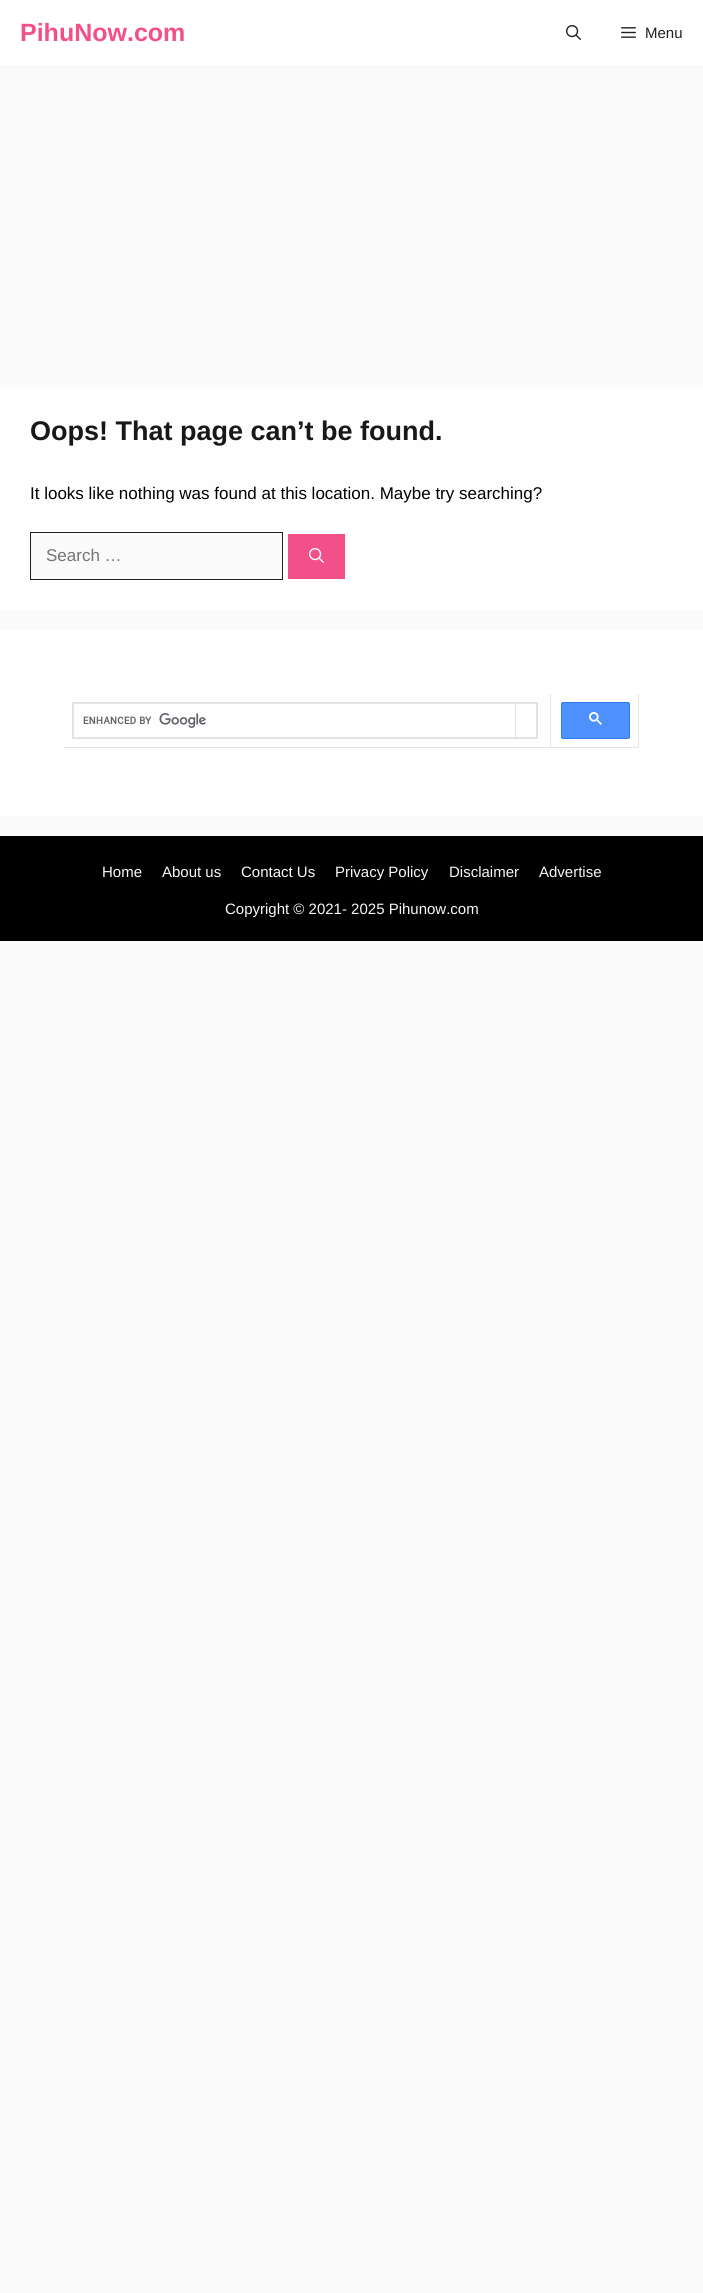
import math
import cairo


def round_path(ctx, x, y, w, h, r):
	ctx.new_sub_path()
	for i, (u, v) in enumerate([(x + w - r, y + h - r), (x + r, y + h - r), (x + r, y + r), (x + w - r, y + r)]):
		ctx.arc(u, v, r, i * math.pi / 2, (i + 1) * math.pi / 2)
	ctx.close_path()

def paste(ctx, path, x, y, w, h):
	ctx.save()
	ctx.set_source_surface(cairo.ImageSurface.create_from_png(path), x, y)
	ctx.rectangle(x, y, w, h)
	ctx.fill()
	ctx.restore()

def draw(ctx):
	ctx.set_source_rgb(0.98, 0.98, 0.98)
	ctx.paint()
	ctx.set_source_rgb(1, 1, 1)
	ctx.rectangle(0, 0, 703, 65)
	ctx.fill()
	ctx.select_font_face('Liberation Sans', cairo.FONT_SLANT_NORMAL, cairo.FONT_WEIGHT_BOLD)
	ctx.set_font_size(25)
	ctx.set_source_rgb(0.953, 0.31, 0.537)
	ctx.move_to(20, 41)
	ctx.show_text('PihuNow.com')
	paste(ctx, 'media/1.png', 566, 25, 15, 15)
	paste(ctx, 'media/2.png', 621, 27, 15, 11)
	ctx.select_font_face('Liberation Sans')
	ctx.set_font_size(15)
	ctx.set_source_rgb(0.129, 0.129, 0.129)
	ctx.move_to(645, 38)
	ctx.show_text('Menu')
	ctx.set_source_rgb(0.996, 0.996, 0.996)
	ctx.rectangle(0, 385, 703, 225)
	ctx.fill()
	ctx.select_font_face('Liberation Sans', cairo.FONT_SLANT_NORMAL, cairo.FONT_WEIGHT_BOLD)
	ctx.set_font_size(27)
	ctx.set_source_rgb(0.094, 0.094, 0.094)
	ctx.move_to(30, 440)
	ctx.show_text('Oops! That page can’t be found.')
	ctx.select_font_face('Liberation Sans')
	ctx.set_font_size(17)
	ctx.set_source_rgb(0, 0, 0)
	ctx.move_to(30, 499)
	ctx.show_text('It looks like nothing was found at this location. Maybe try searching?')
	ctx.set_source_rgb(0.98, 0.98, 0.98)
	ctx.rectangle(30.5, 532.5, 252, 47)
	ctx.fill_preserve()
	ctx.set_source_rgb(0.129, 0.129, 0.129)
	ctx.set_line_width(1)
	ctx.stroke()
	ctx.set_source_rgb(0.459, 0.459, 0.459)
	ctx.move_to(46, 561)
	ctx.show_text('Search …')
	ctx.set_source_rgb(0.953, 0.31, 0.537)
	ctx.rectangle(288, 534, 57, 45)
	ctx.fill()
	paste(ctx, 'media/3.png', 309, 548, 15, 15)
	ctx.set_source_rgb(0.996, 0.996, 0.996)
	ctx.rectangle(0, 630, 703, 186)
	ctx.fill()
	ctx.set_source_rgb(0.898, 0.898, 0.898)
	ctx.new_path()
	ctx.move_to(551, 694)
	ctx.line_to(551, 748)
	ctx.line_to(550, 747)
	ctx.line_to(550, 694)
	ctx.close_path()
	ctx.fill()
	ctx.set_source_rgba(0, 0, 0, 0.1)
	ctx.new_path()
	ctx.move_to(551, 748)
	ctx.line_to(64, 748)
	ctx.line_to(64, 747)
	ctx.line_to(550, 747)
	ctx.close_path()
	ctx.fill()
	ctx.rectangle(72.5, 702.5, 465, 36)
	ctx.set_source_rgb(0.875, 0.882, 0.898)
	ctx.stroke()
	ctx.set_source_rgb(0.898, 0.898, 0.898)
	ctx.new_path()
	ctx.move_to(73, 703)
	ctx.line_to(537, 703)
	ctx.line_to(537, 704)
	ctx.line_to(74, 704)
	ctx.close_path()
	ctx.fill()
	ctx.set_source_rgba(0, 0, 0, 0.1)
	ctx.new_path()
	ctx.move_to(73, 738)
	ctx.line_to(73, 703)
	ctx.line_to(74, 704)
	ctx.line_to(74, 738)
	ctx.close_path()
	ctx.fill()
	ctx.set_source_rgb(0.898, 0.898, 0.898)
	ctx.new_path()
	ctx.move_to(516, 704)
	ctx.line_to(516, 738)
	ctx.line_to(515, 737)
	ctx.line_to(515, 704)
	ctx.close_path()
	ctx.fill()
	ctx.set_source_rgba(0, 0, 0, 0.1)
	ctx.new_path()
	ctx.move_to(516, 738)
	ctx.line_to(74, 738)
	ctx.line_to(74, 737)
	ctx.line_to(515, 737)
	ctx.close_path()
	ctx.fill()
	paste(ctx, 'media/4.png', 83, 713, 123, 15)
	ctx.set_source_rgb(0.898, 0.898, 0.898)
	ctx.new_path()
	ctx.move_to(537, 704)
	ctx.line_to(537, 738)
	ctx.line_to(536, 737)
	ctx.line_to(536, 704)
	ctx.close_path()
	ctx.fill()
	ctx.set_source_rgba(0, 0, 0, 0.1)
	ctx.new_path()
	ctx.move_to(537, 738)
	ctx.line_to(516, 738)
	ctx.line_to(516, 737)
	ctx.line_to(536, 737)
	ctx.close_path()
	ctx.fill()
	ctx.set_source_rgb(0.898, 0.898, 0.898)
	ctx.new_path()
	ctx.move_to(639, 694)
	ctx.line_to(639, 748)
	ctx.line_to(638, 747)
	ctx.line_to(638, 694)
	ctx.close_path()
	ctx.fill()
	ctx.set_source_rgba(0, 0, 0, 0.1)
	ctx.new_path()
	ctx.move_to(639, 748)
	ctx.line_to(551, 748)
	ctx.line_to(551, 747)
	ctx.line_to(638, 747)
	ctx.close_path()
	ctx.fill()
	ctx.set_source_rgb(0.302, 0.565, 0.996)
	round_path(ctx, 561.5, 702.5, 68, 36, 1.5)
	ctx.fill_preserve()
	ctx.set_source_rgb(0.188, 0.475, 0.929)
	ctx.stroke()
	paste(ctx, 'media/5.png', 589, 712, 13, 13)
	ctx.set_source_rgb(0, 0, 0)
	ctx.rectangle(0, 836, 703, 105)
	ctx.fill()
	ctx.set_font_size(15)
	ctx.set_source_rgb(0.969, 0.973, 0.976)
	for x, y, s in [
		(102, 877, 'Home'),
		(162, 877, 'About us'),
		(241, 877, 'Contact Us'),
		(335, 877, 'Privacy Policy'),
		(449, 877, 'Disclaimer'),
		(539, 877, 'Advertise'),
		(225, 914, 'Copyright © 2021- 2025 Pihunow.com'),
	]:
		ctx.move_to(x, y)
		ctx.show_text(s)


surface = cairo.ImageSurface(cairo.FORMAT_RGB24, 703, 2293)
ctx = cairo.Context(surface)
options = cairo.FontOptions()
options.set_hint_metrics(cairo.HINT_METRICS_OFF)
options.set_hint_style(cairo.HINT_STYLE_NONE)
ctx.set_font_options(options)
ctx.set_miter_limit(4)
draw(ctx)
surface.write_to_png('image.png')
